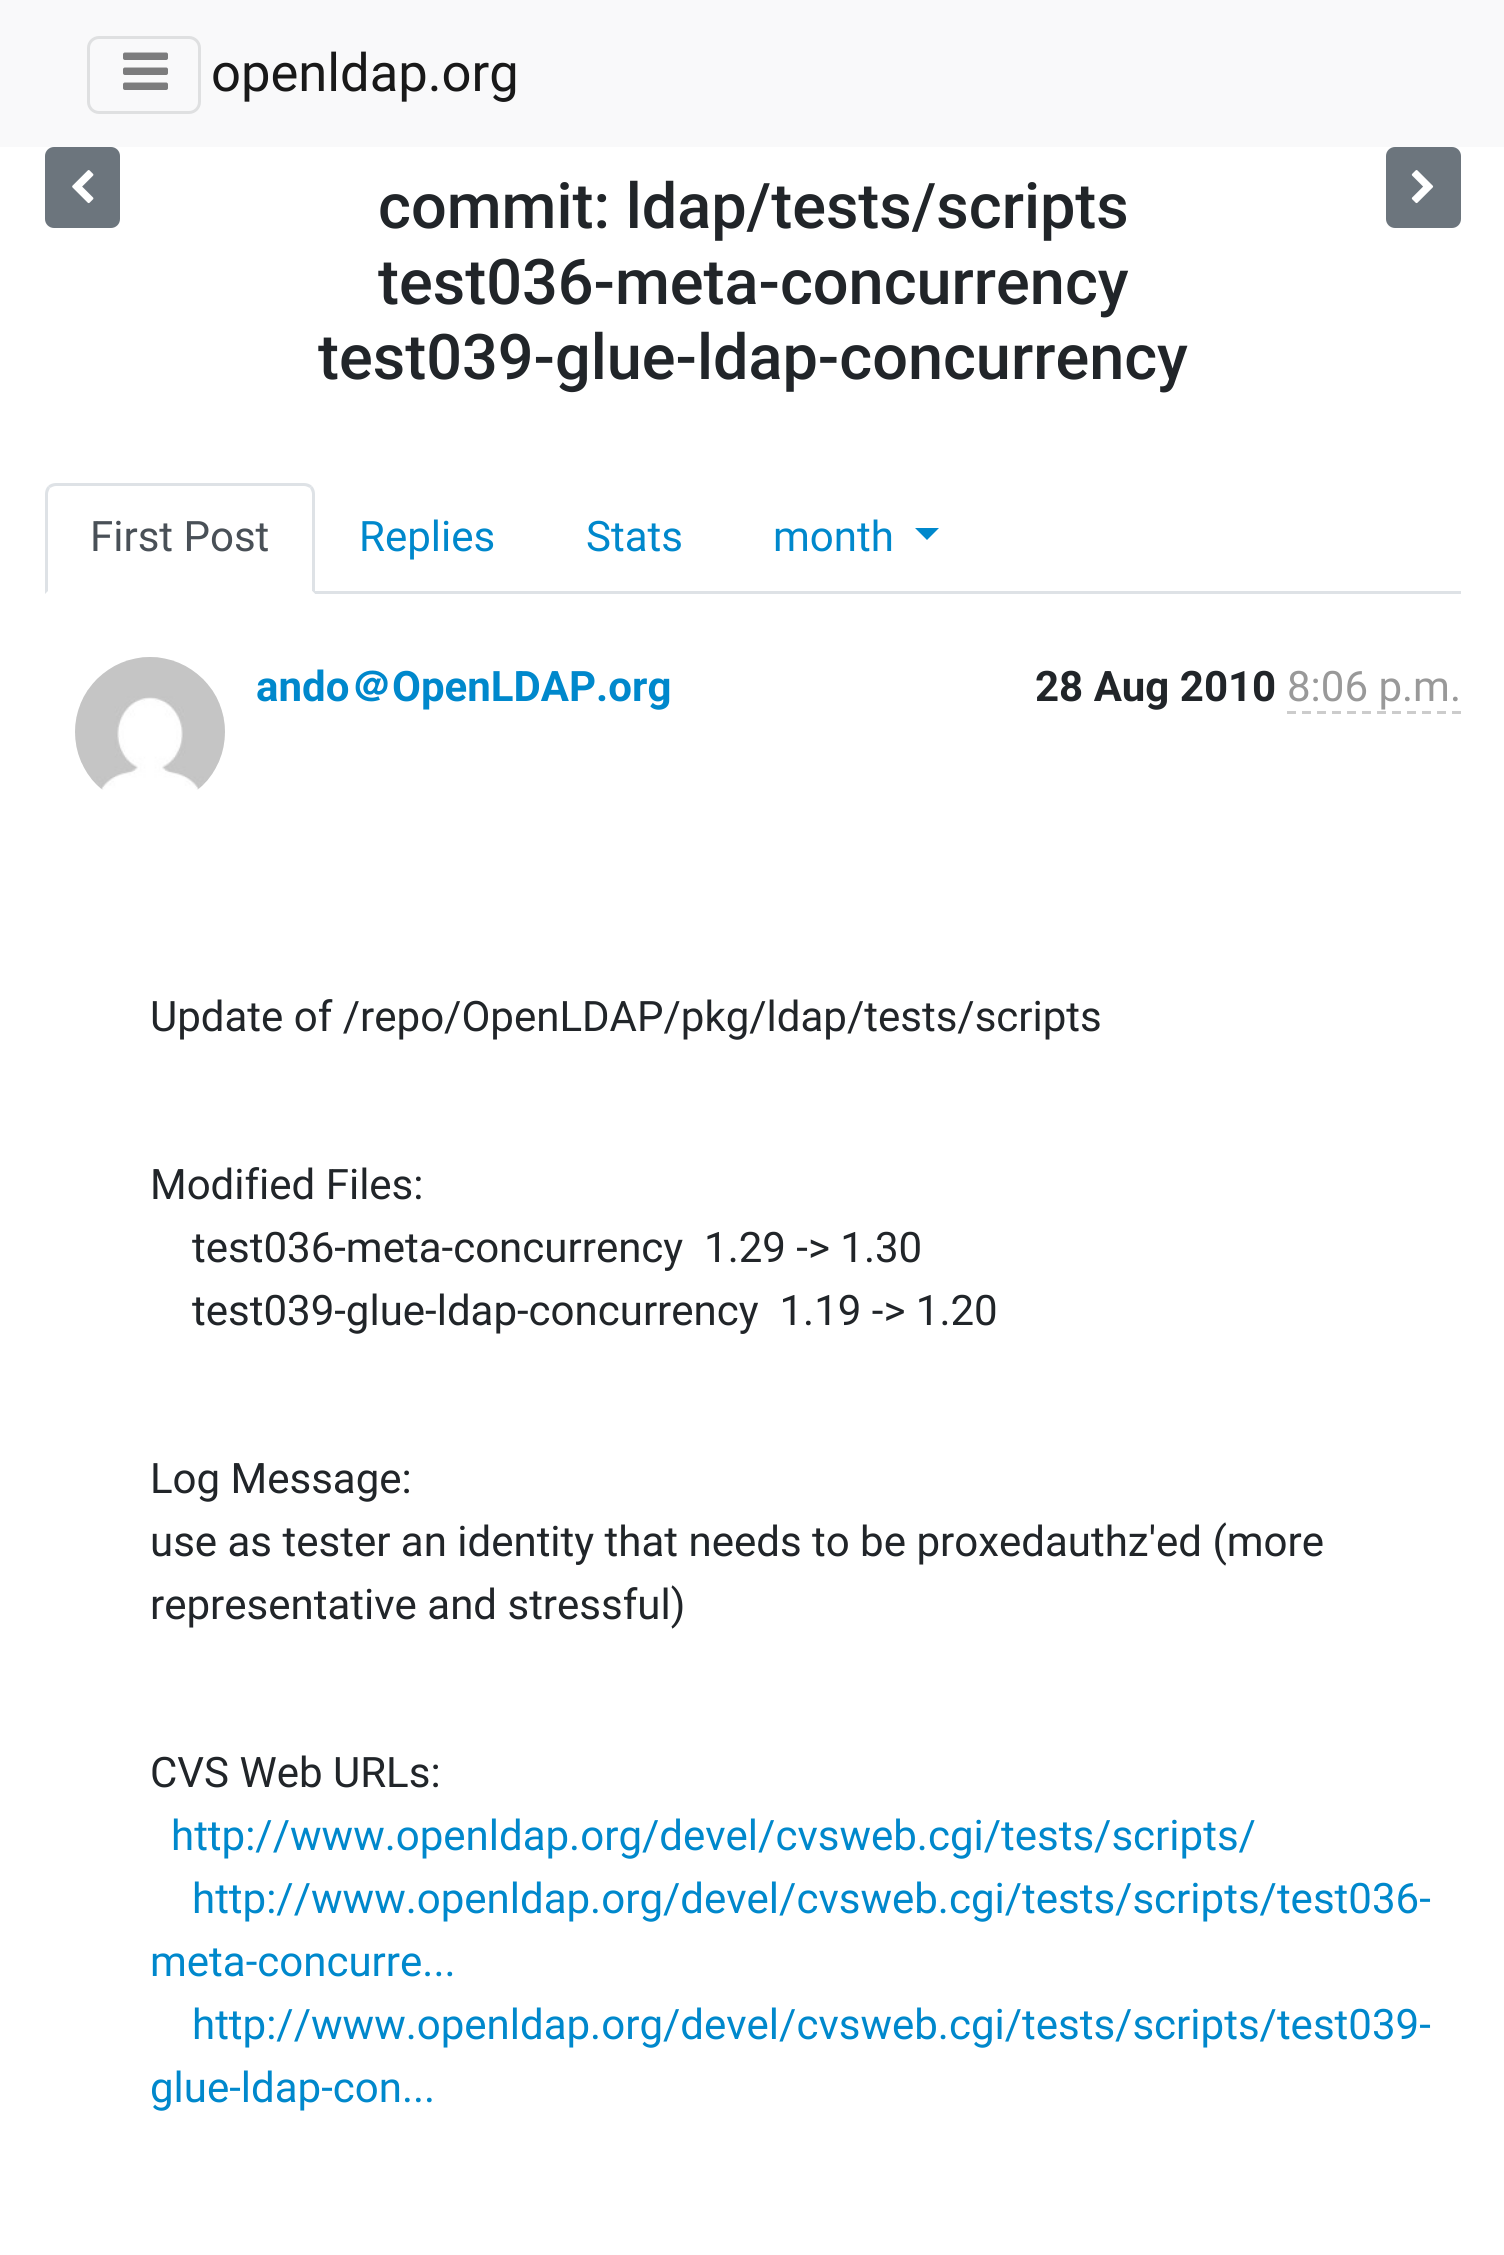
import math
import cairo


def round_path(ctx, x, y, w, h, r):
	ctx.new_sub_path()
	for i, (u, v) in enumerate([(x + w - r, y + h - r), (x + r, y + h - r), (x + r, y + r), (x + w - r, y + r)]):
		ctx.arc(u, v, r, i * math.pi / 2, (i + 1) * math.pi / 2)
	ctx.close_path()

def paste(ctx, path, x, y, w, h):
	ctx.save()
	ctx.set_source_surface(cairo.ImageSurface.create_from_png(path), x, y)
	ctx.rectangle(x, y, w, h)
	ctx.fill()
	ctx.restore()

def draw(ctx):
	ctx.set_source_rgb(1, 1, 1)
	ctx.paint()
	ctx.set_source_rgb(0.973, 0.976, 0.98)
	ctx.rectangle(0, 0, 1504, 147)
	ctx.fill()
	round_path(ctx, 88.5, 37.5, 111, 75, 10.5)
	ctx.set_source_rgb(0.875, 0.878, 0.882)
	ctx.set_line_width(3)
	ctx.stroke()
	paste(ctx, 'media/1.png', 123, 52, 45, 38)
	ctx.select_font_face('Roboto')
	ctx.set_font_size(52.5)
	ctx.set_source_rgb(0.098, 0.098, 0.098)
	ctx.move_to(211, 91)
	ctx.show_text('openldap.org')
	ctx.set_source_rgb(0.424, 0.459, 0.49)
	round_path(ctx, 46.5, 148.5, 72, 78, 7.5)
	ctx.fill_preserve()
	ctx.stroke()
	paste(ctx, 'media/2.png', 72, 170, 22, 34)
	ctx.select_font_face('Roboto Medium')
	ctx.set_font_size(63)
	ctx.set_source_rgb(0.129, 0.145, 0.161)
	for x, y, s in [
		(378, 228, 'commit: ldap/tests/scripts'),
		(378, 304, 'test036-meta-concurrency'),
		(318, 379, 'test039-glue-ldap-concurrency'),
	]:
		ctx.move_to(x, y)
		ctx.show_text(s)
	ctx.set_source_rgb(0.424, 0.459, 0.49)
	round_path(ctx, 1387.5, 148.5, 72, 78, 7.5)
	ctx.fill_preserve()
	ctx.stroke()
	paste(ctx, 'media/3.png', 1411, 170, 23, 34)
	ctx.set_source_rgb(0.871, 0.886, 0.902)
	ctx.rectangle(315, 591, 1146, 3)
	ctx.fill()
	ctx.new_path()
	ctx.move_to(56, 483)
	ctx.curve_to(53, 483, 50, 484, 48, 486)
	ctx.line_to(50, 488)
	ctx.curve_to(52, 487, 54, 486, 56, 486)
	ctx.line_to(304, 486)
	ctx.curve_to(306, 486, 308, 487, 310, 488)
	ctx.line_to(312, 486)
	ctx.curve_to(310, 484, 307, 483, 304, 483)
	ctx.close_path()
	ctx.fill()
	ctx.new_path()
	ctx.move_to(315, 594)
	ctx.line_to(315, 494)
	ctx.curve_to(315, 491, 314, 488, 312, 486)
	ctx.line_to(310, 488)
	ctx.curve_to(311, 490, 312, 492, 312, 494)
	ctx.line_to(312, 591)
	ctx.close_path()
	ctx.fill()
	ctx.set_source_rgb(1, 1, 1)
	ctx.new_path()
	ctx.move_to(315, 594)
	ctx.line_to(312, 591)
	ctx.line_to(48, 591)
	ctx.line_to(45, 594)
	ctx.close_path()
	ctx.fill()
	ctx.set_source_rgb(0.871, 0.886, 0.902)
	ctx.new_path()
	ctx.move_to(45, 594)
	ctx.line_to(48, 591)
	ctx.line_to(48, 494)
	ctx.curve_to(48, 492, 49, 490, 50, 488)
	ctx.line_to(48, 486)
	ctx.curve_to(46, 488, 45, 491, 45, 494)
	ctx.close_path()
	ctx.fill()
	ctx.select_font_face('Roboto')
	ctx.set_font_size(42)
	ctx.set_source_rgb(0.286, 0.314, 0.341)
	ctx.move_to(90, 551)
	ctx.show_text('First Post')
	ctx.set_source_rgb(0, 0.533, 0.8)
	for x, y, s in [
		(359, 551, 'Replies'),
		(586, 551, 'Stats'),
		(773, 551, 'month'),
	]:
		ctx.move_to(x, y)
		ctx.show_text(s)
	ctx.new_path()
	ctx.move_to(915, 528)
	ctx.line_to(939, 528)
	ctx.line_to(927, 540)
	ctx.close_path()
	ctx.fill()
	paste(ctx, 'media/4.png', 75, 657, 150, 133)
	ctx.select_font_face('Roboto', cairo.FONT_SLANT_NORMAL, cairo.FONT_WEIGHT_BOLD)
	ctx.move_to(256, 701)
	ctx.show_text('ando')
	ctx.select_font_face('WenQuanYi Zen Hei', cairo.FONT_SLANT_NORMAL, cairo.FONT_WEIGHT_BOLD)
	ctx.move_to(350, 701)
	ctx.show_text('＠')
	ctx.select_font_face('Roboto', cairo.FONT_SLANT_NORMAL, cairo.FONT_WEIGHT_BOLD)
	ctx.move_to(392, 701)
	ctx.show_text('OpenLDAP.org')
	ctx.set_source_rgb(0.129, 0.145, 0.161)
	ctx.move_to(1035, 701)
	ctx.show_text('28 Aug 2010')
	ctx.select_font_face('Roboto')
	ctx.set_source_rgb(0.6, 0.6, 0.6)
	ctx.move_to(1287, 701)
	ctx.show_text('8:06 p.m.')
	ctx.new_path()
	ctx.move_to(1287, 712.5)
	ctx.line_to(1461, 712.5)
	ctx.set_source_rgb(0.8, 0.8, 0.8)
	ctx.set_dash([9, 6])
	ctx.stroke()
	ctx.set_source_rgb(0.129, 0.145, 0.161)
	for x, y, s in [
		(150, 1031, 'Update of /repo/OpenLDAP/pkg/ldap/tests/scripts'),
		(150, 1199, 'Modified Files:'),
		(192, 1262, 'test036-meta-concurrency  1.29 -> 1.30'),
		(192, 1325, 'test039-glue-ldap-concurrency  1.19 -> 1.20'),
		(150, 1493, 'Log Message:'),
		(150, 1556, 'use as tester an identity that needs to be proxedauthz\'ed (more'),
		(150, 1619, 'representative and stressful)'),
		(150, 1787, 'CVS Web URLs:'),
	]:
		ctx.move_to(x, y)
		ctx.show_text(s)
	ctx.set_source_rgb(0, 0.533, 0.8)
	for x, y, s in [
		(171, 1850, 'http://www.openldap.org/devel/cvsweb.cgi/tests/scripts/'),
		(192, 1913, 'http://www.openldap.org/devel/cvsweb.cgi/tests/scripts/test036-'),
		(150, 1976, 'meta-concurre...'),
		(192, 2039, 'http://www.openldap.org/devel/cvsweb.cgi/tests/scripts/test039-'),
		(150, 2102, 'glue-ldap-con...'),
	]:
		ctx.move_to(x, y)
		ctx.show_text(s)


surface = cairo.ImageSurface(cairo.FORMAT_RGB24, 1504, 2255)
ctx = cairo.Context(surface)
options = cairo.FontOptions()
options.set_hint_metrics(cairo.HINT_METRICS_OFF)
options.set_hint_style(cairo.HINT_STYLE_NONE)
ctx.set_font_options(options)
ctx.set_miter_limit(4)
draw(ctx)
surface.write_to_png('image.png')
